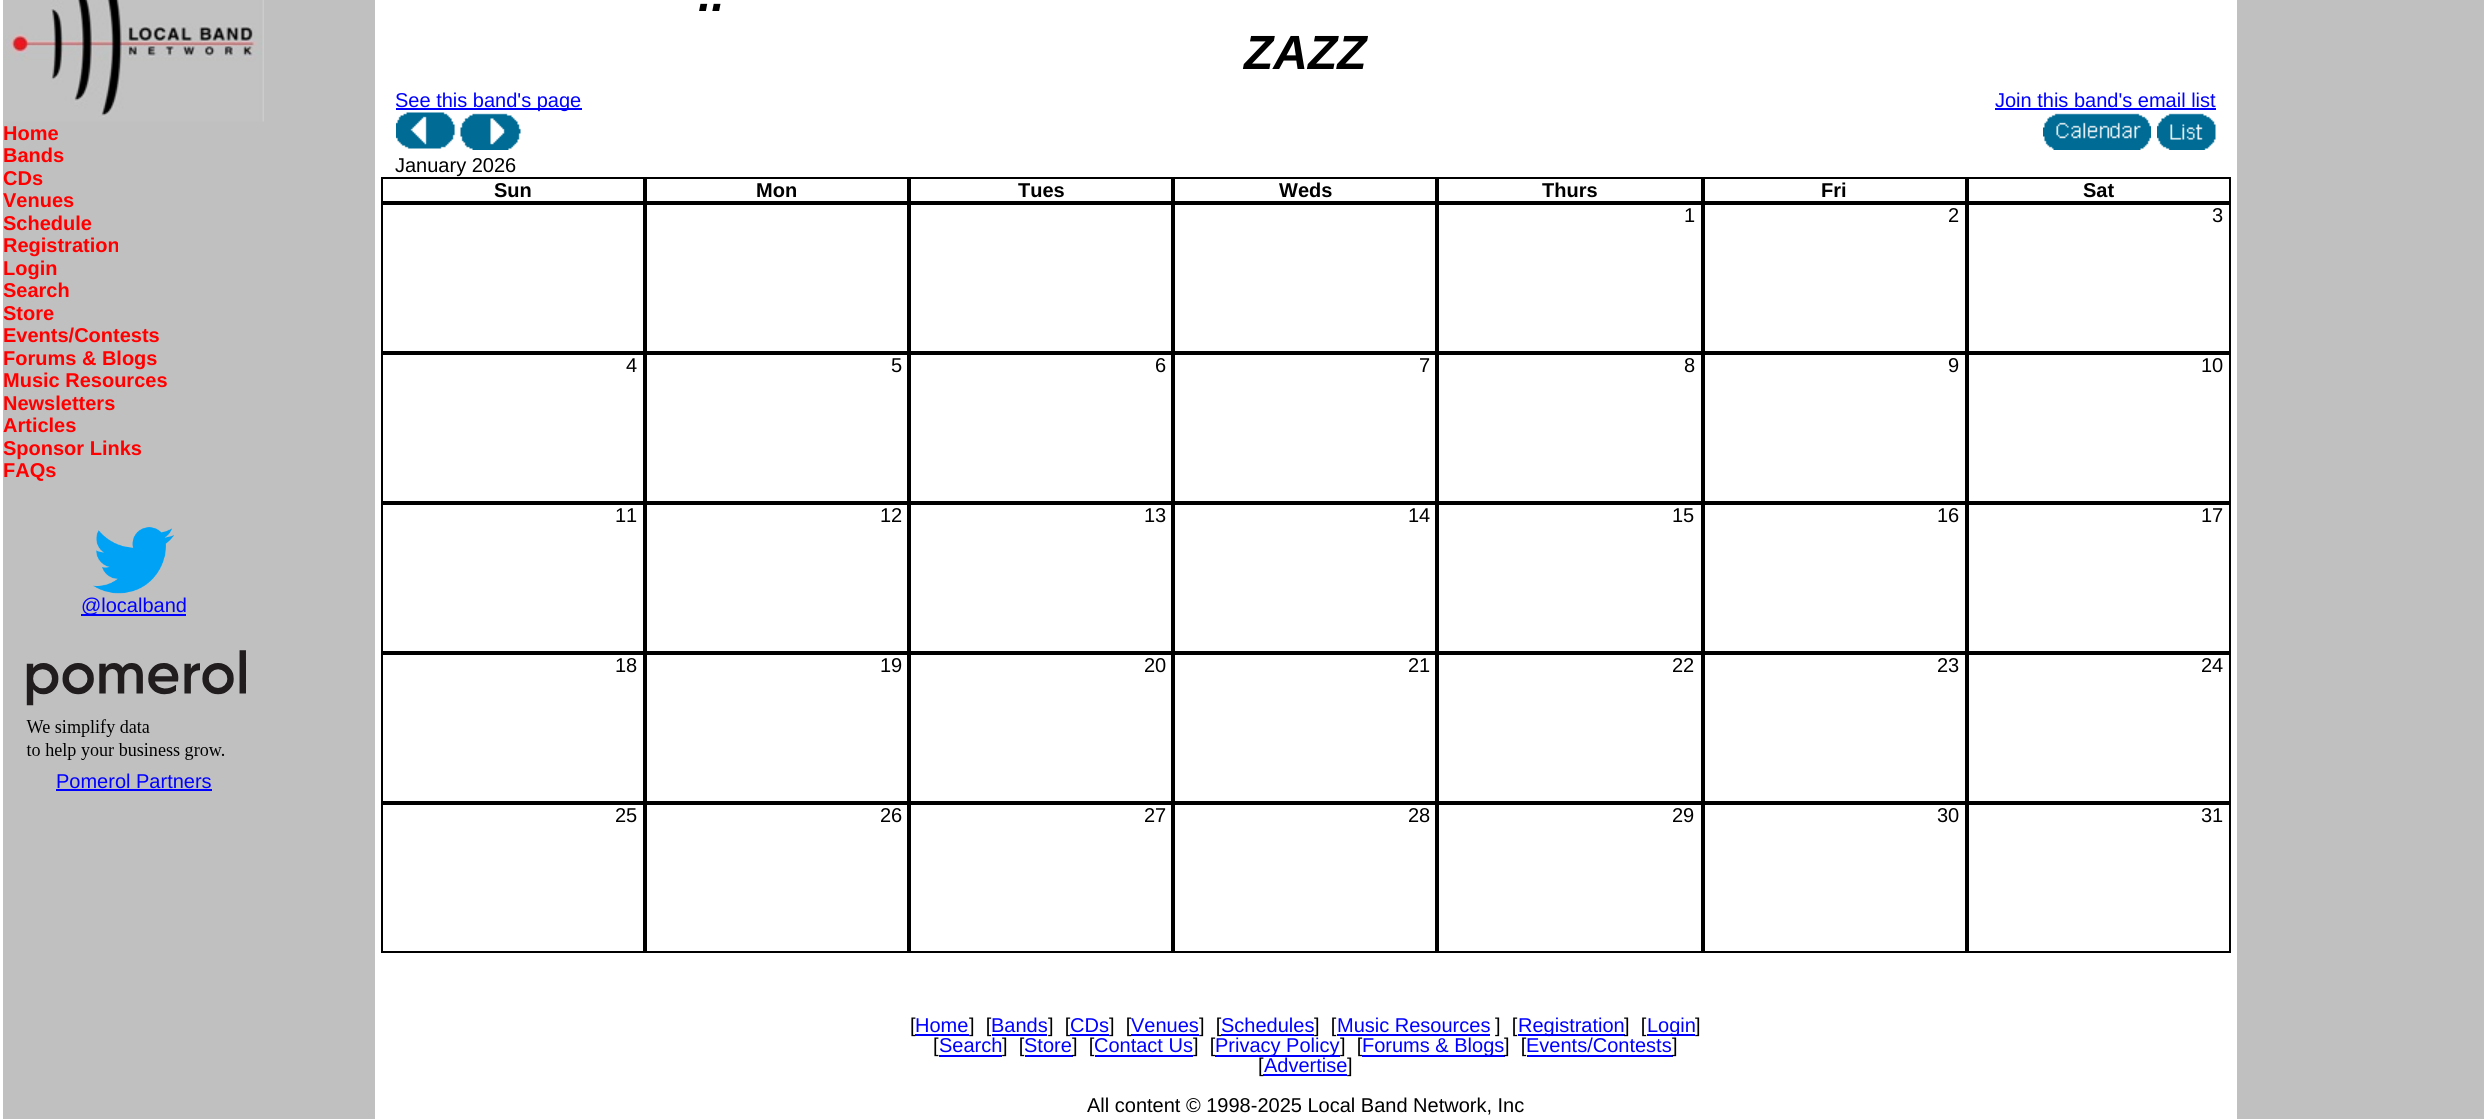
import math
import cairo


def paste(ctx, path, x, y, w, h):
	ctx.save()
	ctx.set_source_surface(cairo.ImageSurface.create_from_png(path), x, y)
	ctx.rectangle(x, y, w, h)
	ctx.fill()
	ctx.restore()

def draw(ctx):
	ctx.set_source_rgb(1, 1, 1)
	ctx.paint()
	ctx.set_source_rgb(0.753, 0.753, 0.753)
	ctx.rectangle(3, 0, 372, 1119)
	ctx.fill()
	paste(ctx, 'media/1.png', 3, 0, 261, 122)
	ctx.select_font_face('Liberation Sans', cairo.FONT_SLANT_NORMAL, cairo.FONT_WEIGHT_BOLD)
	ctx.set_font_size(20)
	ctx.set_source_rgb(1, 0, 0)
	for x, y, s in [
		(3, 140, 'Home'),
		(3, 162, 'Bands'),
		(3, 185, 'CDs'),
		(3, 207, 'Venues'),
		(3, 230, 'Schedule'),
		(3, 252, 'Registration'),
		(3, 275, 'Login'),
		(3, 297, 'Search'),
		(3, 320, 'Store'),
		(3, 342, 'Events/Contests'),
		(3, 365, 'Forums & Blogs'),
		(3, 387, 'Music Resources'),
		(3, 410, 'Newsletters'),
		(3, 432, 'Articles'),
		(3, 455, 'Sponsor Links'),
		(3, 477, 'FAQs'),
	]:
		ctx.move_to(x, y)
		ctx.show_text(s)
	paste(ctx, 'media/2.png', 93, 527, 81, 67)
	ctx.set_source_rgb(0, 0, 1)
	ctx.rectangle(81, 614, 105, 2)
	ctx.fill()
	ctx.select_font_face('Liberation Sans')
	ctx.move_to(81, 612)
	ctx.show_text('@localband')
	paste(ctx, 'media/3.png', 26, 650, 220, 110)
	ctx.move_to(56, 788)
	ctx.show_text('Pomerol Partners')
	ctx.rectangle(56, 789, 156, 2)
	ctx.fill()
	ctx.select_font_face('Liberation Sans', cairo.FONT_SLANT_ITALIC, cairo.FONT_WEIGHT_BOLD)
	ctx.set_font_size(48)
	ctx.set_source_rgb(0, 0, 0)
	ctx.move_to(698, 11)
	ctx.show_text('..')
	ctx.move_to(1244, 69)
	ctx.show_text('ZAZZ')
	ctx.set_source_rgb(0, 0, 1)
	ctx.rectangle(396, 108, 186, 2)
	ctx.fill()
	ctx.select_font_face('Liberation Sans')
	ctx.set_font_size(20)
	ctx.move_to(395, 107)
	ctx.show_text('See this band\'s page')
	ctx.move_to(1995, 107)
	ctx.show_text('Join this band\'s email list')
	ctx.rectangle(1995, 108, 221, 2)
	ctx.fill()
	paste(ctx, 'media/4.png', 2043, 113, 108, 37)
	paste(ctx, 'media/5.png', 2157, 113, 59, 37)
	paste(ctx, 'media/6.png', 396, 112, 59, 37)
	paste(ctx, 'media/7.png', 460, 113, 61, 37)
	ctx.set_source_rgb(0, 0, 0)
	ctx.move_to(395, 172)
	ctx.show_text('January 2026')
	ctx.rectangle(382, 178, 262, 24)
	ctx.stroke()
	ctx.select_font_face('Liberation Sans', cairo.FONT_SLANT_NORMAL, cairo.FONT_WEIGHT_BOLD)
	ctx.move_to(494, 197)
	ctx.show_text('Sun')
	ctx.rectangle(646, 178, 262, 24)
	ctx.stroke()
	ctx.move_to(756, 197)
	ctx.show_text('Mon')
	ctx.rectangle(910, 178, 262, 24)
	ctx.stroke()
	ctx.move_to(1018, 197)
	ctx.show_text('Tues')
	ctx.rectangle(1174, 178, 262, 24)
	ctx.stroke()
	ctx.move_to(1279, 197)
	ctx.show_text('Weds')
	ctx.rectangle(1438, 178, 264, 24)
	ctx.stroke()
	ctx.move_to(1542, 197)
	ctx.show_text('Thurs')
	ctx.rectangle(1704, 178, 262, 24)
	ctx.stroke()
	ctx.move_to(1821, 197)
	ctx.show_text('Fri')
	ctx.rectangle(1968, 178, 262, 24)
	ctx.stroke()
	ctx.move_to(2083, 197)
	ctx.show_text('Sat')
	ctx.rectangle(382, 204, 262, 148)
	ctx.stroke()
	ctx.rectangle(646, 204, 262, 148)
	ctx.stroke()
	ctx.rectangle(910, 204, 262, 148)
	ctx.stroke()
	ctx.rectangle(1174, 204, 262, 148)
	ctx.stroke()
	ctx.rectangle(1438, 204, 264, 148)
	ctx.stroke()
	ctx.select_font_face('Liberation Sans')
	ctx.move_to(1684, 222)
	ctx.show_text('1')
	ctx.rectangle(1704, 204, 262, 148)
	ctx.stroke()
	ctx.move_to(1948, 222)
	ctx.show_text('2')
	ctx.rectangle(1968, 204, 262, 148)
	ctx.stroke()
	ctx.move_to(2212, 222)
	ctx.show_text('3')
	ctx.rectangle(382, 354, 262, 148)
	ctx.stroke()
	ctx.move_to(626, 372)
	ctx.show_text('4')
	ctx.rectangle(646, 354, 262, 148)
	ctx.stroke()
	ctx.move_to(891, 372)
	ctx.show_text('5')
	ctx.rectangle(910, 354, 262, 148)
	ctx.stroke()
	ctx.move_to(1155, 372)
	ctx.show_text('6')
	ctx.rectangle(1174, 354, 262, 148)
	ctx.stroke()
	ctx.move_to(1419, 372)
	ctx.show_text('7')
	ctx.rectangle(1438, 354, 264, 148)
	ctx.stroke()
	ctx.move_to(1684, 372)
	ctx.show_text('8')
	ctx.rectangle(1704, 354, 262, 148)
	ctx.stroke()
	ctx.move_to(1948, 372)
	ctx.show_text('9')
	ctx.rectangle(1968, 354, 262, 148)
	ctx.stroke()
	ctx.move_to(2201, 372)
	ctx.show_text('10')
	ctx.rectangle(382, 504, 262, 148)
	ctx.stroke()
	ctx.move_to(615, 522)
	ctx.show_text('11')
	ctx.rectangle(646, 504, 262, 148)
	ctx.stroke()
	ctx.move_to(880, 522)
	ctx.show_text('12')
	ctx.rectangle(910, 504, 262, 148)
	ctx.stroke()
	ctx.move_to(1144, 522)
	ctx.show_text('13')
	ctx.rectangle(1174, 504, 262, 148)
	ctx.stroke()
	ctx.move_to(1408, 522)
	ctx.show_text('14')
	ctx.rectangle(1438, 504, 264, 148)
	ctx.stroke()
	ctx.move_to(1672, 522)
	ctx.show_text('15')
	ctx.rectangle(1704, 504, 262, 148)
	ctx.stroke()
	ctx.move_to(1937, 522)
	ctx.show_text('16')
	ctx.rectangle(1968, 504, 262, 148)
	ctx.stroke()
	ctx.move_to(2201, 522)
	ctx.show_text('17')
	ctx.rectangle(382, 654, 262, 148)
	ctx.stroke()
	ctx.move_to(615, 672)
	ctx.show_text('18')
	ctx.rectangle(646, 654, 262, 148)
	ctx.stroke()
	ctx.move_to(880, 672)
	ctx.show_text('19')
	ctx.rectangle(910, 654, 262, 148)
	ctx.stroke()
	ctx.move_to(1144, 672)
	ctx.show_text('20')
	ctx.rectangle(1174, 654, 262, 148)
	ctx.stroke()
	ctx.move_to(1408, 672)
	ctx.show_text('21')
	ctx.rectangle(1438, 654, 264, 148)
	ctx.stroke()
	ctx.move_to(1672, 672)
	ctx.show_text('22')
	ctx.rectangle(1704, 654, 262, 148)
	ctx.stroke()
	ctx.move_to(1937, 672)
	ctx.show_text('23')
	ctx.rectangle(1968, 654, 262, 148)
	ctx.stroke()
	ctx.move_to(2201, 672)
	ctx.show_text('24')
	ctx.rectangle(382, 804, 262, 148)
	ctx.stroke()
	ctx.move_to(615, 822)
	ctx.show_text('25')
	ctx.rectangle(646, 804, 262, 148)
	ctx.stroke()
	ctx.move_to(880, 822)
	ctx.show_text('26')
	ctx.rectangle(910, 804, 262, 148)
	ctx.stroke()
	ctx.move_to(1144, 822)
	ctx.show_text('27')
	ctx.rectangle(1174, 804, 262, 148)
	ctx.stroke()
	ctx.move_to(1408, 822)
	ctx.show_text('28')
	ctx.rectangle(1438, 804, 264, 148)
	ctx.stroke()
	ctx.move_to(1672, 822)
	ctx.show_text('29')
	ctx.rectangle(1704, 804, 262, 148)
	ctx.stroke()
	ctx.move_to(1937, 822)
	ctx.show_text('30')
	ctx.rectangle(1968, 804, 262, 148)
	ctx.stroke()
	ctx.move_to(2201, 822)
	ctx.show_text('31')
	ctx.move_to(910, 1032)
	ctx.show_text('[')
	ctx.set_source_rgb(0, 0, 1)
	ctx.move_to(915, 1032)
	ctx.show_text('Home')
	ctx.rectangle(915, 1034, 54, 2)
	ctx.fill()
	ctx.set_source_rgb(0, 0, 0)
	ctx.move_to(969, 1032)
	ctx.show_text(']  [')
	ctx.set_source_rgb(0, 0, 1)
	ctx.move_to(991, 1032)
	ctx.show_text('Bands')
	ctx.rectangle(992, 1034, 55, 2)
	ctx.fill()
	ctx.set_source_rgb(0, 0, 0)
	ctx.move_to(1048, 1032)
	ctx.show_text(']  [')
	ctx.set_source_rgb(0, 0, 1)
	ctx.move_to(1070, 1032)
	ctx.show_text('CDs')
	ctx.rectangle(1070, 1034, 39, 2)
	ctx.fill()
	ctx.set_source_rgb(0, 0, 0)
	ctx.move_to(1109, 1032)
	ctx.show_text(']  [')
	ctx.set_source_rgb(0, 0, 1)
	ctx.move_to(1131, 1032)
	ctx.show_text('Venues')
	ctx.rectangle(1131, 1034, 68, 2)
	ctx.fill()
	ctx.set_source_rgb(0, 0, 0)
	ctx.move_to(1199, 1032)
	ctx.show_text(']  [')
	ctx.set_source_rgb(0, 0, 1)
	ctx.move_to(1221, 1032)
	ctx.show_text('Schedules')
	ctx.rectangle(1221, 1034, 93, 2)
	ctx.fill()
	ctx.set_source_rgb(0, 0, 0)
	ctx.move_to(1314, 1032)
	ctx.show_text(']  [')
	ctx.set_source_rgb(0, 0, 1)
	ctx.move_to(1337, 1032)
	ctx.show_text('Music Resources')
	ctx.rectangle(1337, 1034, 153, 2)
	ctx.fill()
	ctx.set_source_rgb(0, 0, 0)
	ctx.move_to(1495, 1032)
	ctx.show_text(']  [')
	ctx.set_source_rgb(0, 0, 1)
	ctx.rectangle(1518, 1034, 107, 2)
	ctx.fill()
	ctx.move_to(1518, 1032)
	ctx.show_text('Registration')
	ctx.set_source_rgb(0, 0, 0)
	ctx.move_to(1624, 1032)
	ctx.show_text(']  [')
	ctx.set_source_rgb(0, 0, 1)
	ctx.rectangle(1647, 1034, 48, 2)
	ctx.fill()
	ctx.move_to(1647, 1032)
	ctx.show_text('Login')
	ctx.set_source_rgb(0, 0, 0)
	ctx.move_to(1695, 1032)
	ctx.show_text(']')
	ctx.move_to(933, 1052)
	ctx.show_text('[')
	ctx.set_source_rgb(0, 0, 1)
	ctx.move_to(939, 1052)
	ctx.show_text('Search')
	ctx.rectangle(939, 1055, 63, 2)
	ctx.fill()
	ctx.set_source_rgb(0, 0, 0)
	ctx.move_to(1002, 1052)
	ctx.show_text(']  [')
	ctx.set_source_rgb(0, 0, 1)
	ctx.move_to(1024, 1052)
	ctx.show_text('Store')
	ctx.rectangle(1025, 1055, 48, 2)
	ctx.fill()
	ctx.set_source_rgb(0, 0, 0)
	ctx.move_to(1072, 1052)
	ctx.show_text(']  [')
	ctx.set_source_rgb(0, 0, 1)
	ctx.move_to(1094, 1052)
	ctx.show_text('Contact Us')
	ctx.rectangle(1095, 1055, 98, 2)
	ctx.fill()
	ctx.set_source_rgb(0, 0, 0)
	ctx.move_to(1193, 1052)
	ctx.show_text(']  [')
	ctx.set_source_rgb(0, 0, 1)
	ctx.rectangle(1215, 1055, 125, 2)
	ctx.fill()
	ctx.move_to(1215, 1052)
	ctx.show_text('Privacy Policy')
	ctx.set_source_rgb(0, 0, 0)
	ctx.move_to(1340, 1052)
	ctx.show_text(']  [')
	ctx.set_source_rgb(0, 0, 1)
	ctx.rectangle(1362, 1055, 143, 2)
	ctx.fill()
	ctx.move_to(1362, 1052)
	ctx.show_text('Forums & Blogs')
	ctx.set_source_rgb(0, 0, 0)
	ctx.move_to(1504, 1052)
	ctx.show_text(']  [')
	ctx.set_source_rgb(0, 0, 1)
	ctx.move_to(1526, 1052)
	ctx.show_text('Events/Contests')
	ctx.rectangle(1527, 1055, 146, 2)
	ctx.fill()
	ctx.set_source_rgb(0, 0, 0)
	ctx.move_to(1672, 1052)
	ctx.show_text(']')
	ctx.move_to(1258, 1072)
	ctx.show_text('[')
	ctx.set_source_rgb(0, 0, 1)
	ctx.move_to(1264, 1072)
	ctx.show_text('Advertise')
	ctx.rectangle(1263, 1074, 84, 2)
	ctx.fill()
	ctx.set_source_rgb(0, 0, 0)
	ctx.move_to(1347, 1072)
	ctx.show_text(']')
	ctx.move_to(1087, 1112)
	ctx.show_text('All content © 1998-2025 Local Band Network, Inc')
	ctx.set_source_rgb(0.753, 0.753, 0.753)
	ctx.rectangle(2237, 0, 247, 1119)
	ctx.fill()


surface = cairo.ImageSurface(cairo.FORMAT_RGB24, 2487, 1119)
ctx = cairo.Context(surface)
options = cairo.FontOptions()
options.set_hint_metrics(cairo.HINT_METRICS_OFF)
options.set_hint_style(cairo.HINT_STYLE_NONE)
ctx.set_font_options(options)
ctx.set_miter_limit(4)
draw(ctx)
surface.write_to_png('image.png')
